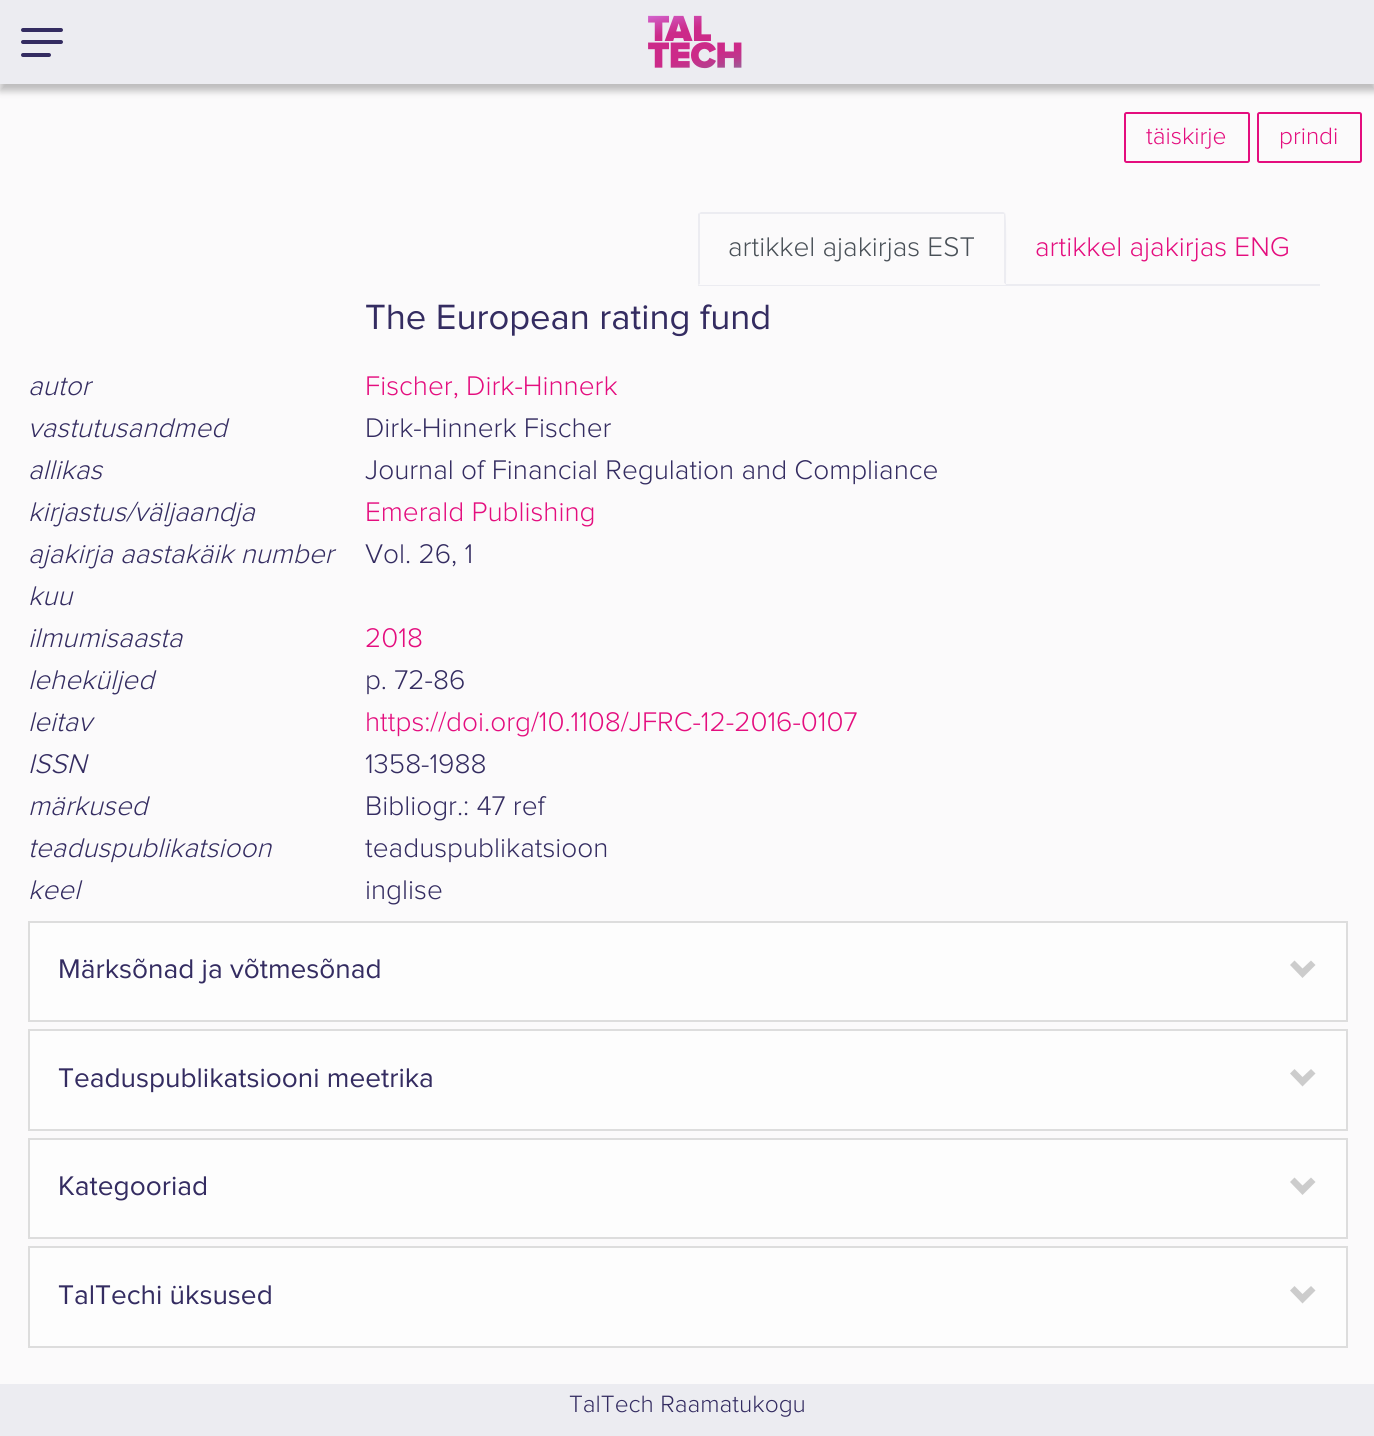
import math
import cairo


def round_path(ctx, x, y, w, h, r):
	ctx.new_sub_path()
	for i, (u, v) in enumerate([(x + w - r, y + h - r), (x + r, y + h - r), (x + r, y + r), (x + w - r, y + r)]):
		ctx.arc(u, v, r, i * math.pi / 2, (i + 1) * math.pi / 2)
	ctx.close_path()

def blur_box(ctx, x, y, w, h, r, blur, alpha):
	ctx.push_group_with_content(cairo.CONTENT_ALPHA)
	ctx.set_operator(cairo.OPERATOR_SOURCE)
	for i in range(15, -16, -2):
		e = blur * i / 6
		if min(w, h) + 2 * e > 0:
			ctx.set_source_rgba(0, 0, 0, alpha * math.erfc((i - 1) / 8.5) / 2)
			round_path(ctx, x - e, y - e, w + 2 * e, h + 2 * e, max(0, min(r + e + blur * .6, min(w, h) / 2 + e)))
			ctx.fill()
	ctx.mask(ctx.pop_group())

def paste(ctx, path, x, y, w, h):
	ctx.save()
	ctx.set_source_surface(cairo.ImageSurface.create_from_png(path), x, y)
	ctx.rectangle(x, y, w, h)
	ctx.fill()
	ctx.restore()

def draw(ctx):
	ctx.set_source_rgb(0.984, 0.98, 0.984)
	ctx.paint()
	ctx.set_source_rgb(0, 0, 0)
	blur_box(ctx, 0, 7, 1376, 84, 0, 3.5, 0.25)
	ctx.set_source_rgb(0.925, 0.925, 0.945)
	ctx.rectangle(0, 0, 1374, 84)
	ctx.fill()
	ctx.set_source_rgb(0.204, 0.173, 0.38)
	round_path(ctx, 21, 40, 42, 4, 2)
	ctx.fill()
	round_path(ctx, 21, 28, 42, 4, 2)
	ctx.fill()
	round_path(ctx, 21, 53, 30, 4, 2)
	ctx.fill()
	paste(ctx, 'media/1.png', 648, 15, 94, 54)
	round_path(ctx, 1125, 113, 124, 49, 1.5)
	ctx.set_source_rgb(0.894, 0.051, 0.494)
	ctx.stroke()
	ctx.select_font_face('Proxima Nova Light')
	ctx.set_font_size(24.5)
	ctx.move_to(1146, 144)
	ctx.show_text('täiskirje')
	round_path(ctx, 1258, 113, 103, 49, 1.5)
	ctx.stroke()
	ctx.move_to(1279, 144)
	ctx.show_text('prindi')
	ctx.set_source_rgb(0.925, 0.925, 0.945)
	ctx.rectangle(698, 284, 622, 2)
	ctx.fill()
	ctx.set_source_rgb(0.984, 0.98, 0.984)
	ctx.new_path()
	ctx.move_to(700.5, 212)
	ctx.line_to(1003.5, 212)
	ctx.curve_to(1005, 212, 1006, 213, 1006, 214.5)
	ctx.line_to(1006, 285)
	ctx.line_to(698, 285)
	ctx.line_to(698, 214.5)
	ctx.curve_to(698, 213, 699, 212, 700.5, 212)
	ctx.close_path()
	ctx.fill()
	ctx.set_source_rgb(0.925, 0.925, 0.945)
	ctx.new_path()
	ctx.move_to(701, 212)
	ctx.line_to(699, 213)
	ctx.line_to(700, 214)
	ctx.line_to(1004, 214)
	ctx.line_to(1005, 213)
	ctx.line_to(1003, 212)
	ctx.close_path()
	ctx.fill()
	ctx.new_path()
	ctx.move_to(1006, 285)
	ctx.curve_to(1006, 277, 1007, 214, 1005, 213)
	ctx.line_to(1004, 214)
	ctx.line_to(1004, 283)
	ctx.close_path()
	ctx.fill()
	ctx.set_source_rgb(0.984, 0.98, 0.984)
	ctx.new_path()
	ctx.move_to(1006, 285)
	ctx.line_to(1004, 283)
	ctx.line_to(1004, 284)
	ctx.line_to(700, 284)
	ctx.line_to(698, 285)
	ctx.close_path()
	ctx.fill()
	ctx.set_source_rgb(0.925, 0.925, 0.945)
	ctx.new_path()
	ctx.move_to(698, 214)
	ctx.line_to(699, 213)
	ctx.line_to(700, 214)
	ctx.line_to(700, 284)
	ctx.line_to(698, 285)
	ctx.close_path()
	ctx.fill()
	ctx.set_font_size(28)
	ctx.set_source_rgb(0.286, 0.314, 0.341)
	ctx.move_to(728, 256)
	ctx.show_text('artikkel ajakirjas EST')
	ctx.set_source_rgb(0.894, 0.051, 0.494)
	ctx.move_to(1035, 256)
	ctx.show_text('artikkel ajakirjas ENG')
	ctx.select_font_face('Proxima Nova')
	ctx.set_font_size(36.4)
	ctx.set_source_rgb(0.204, 0.173, 0.38)
	ctx.move_to(365, 329)
	ctx.show_text('The European rating fund')
	ctx.select_font_face('Proxima Nova Light', cairo.FONT_SLANT_ITALIC)
	ctx.set_font_size(28)
	ctx.move_to(28, 395)
	ctx.show_text('autor')
	ctx.select_font_face('Proxima Nova Light')
	ctx.set_source_rgb(0.894, 0.051, 0.494)
	ctx.move_to(365, 395)
	ctx.show_text('Fischer, Dirk-Hinnerk')
	ctx.select_font_face('Proxima Nova Light', cairo.FONT_SLANT_ITALIC)
	ctx.set_source_rgb(0.204, 0.173, 0.38)
	ctx.move_to(28, 437)
	ctx.show_text('vastutusandmed')
	ctx.select_font_face('Proxima Nova Light')
	ctx.move_to(365, 437)
	ctx.show_text('Dirk-Hinnerk Fischer')
	ctx.select_font_face('Proxima Nova Light', cairo.FONT_SLANT_ITALIC)
	ctx.move_to(28, 479)
	ctx.show_text('allikas')
	ctx.select_font_face('Proxima Nova Light')
	ctx.move_to(365, 479)
	ctx.show_text('Journal of Financial Regulation and Compliance')
	ctx.select_font_face('Proxima Nova Light', cairo.FONT_SLANT_ITALIC)
	ctx.move_to(28, 521)
	ctx.show_text('kirjastus/väljaandja')
	ctx.select_font_face('Proxima Nova Light')
	ctx.set_source_rgb(0.894, 0.051, 0.494)
	ctx.move_to(365, 521)
	ctx.show_text('Emerald Publishing')
	ctx.select_font_face('Proxima Nova Light', cairo.FONT_SLANT_ITALIC)
	ctx.set_source_rgb(0.204, 0.173, 0.38)
	ctx.move_to(28, 563)
	ctx.show_text('ajakirja aastakäik number')
	ctx.move_to(28, 605)
	ctx.show_text('kuu')
	ctx.select_font_face('Proxima Nova Light')
	ctx.move_to(365, 563)
	ctx.show_text('Vol. 26, 1')
	ctx.select_font_face('Proxima Nova Light', cairo.FONT_SLANT_ITALIC)
	ctx.move_to(28, 647)
	ctx.show_text('ilmumisaasta')
	ctx.select_font_face('Proxima Nova Light')
	ctx.set_source_rgb(0.894, 0.051, 0.494)
	ctx.move_to(365, 647)
	ctx.show_text('2018')
	ctx.select_font_face('Proxima Nova Light', cairo.FONT_SLANT_ITALIC)
	ctx.set_source_rgb(0.204, 0.173, 0.38)
	ctx.move_to(28, 689)
	ctx.show_text('leheküljed')
	ctx.select_font_face('Proxima Nova Light')
	ctx.move_to(365, 689)
	ctx.show_text('p. 72-86')
	ctx.select_font_face('Proxima Nova Light', cairo.FONT_SLANT_ITALIC)
	ctx.move_to(28, 731)
	ctx.show_text('leitav')
	ctx.select_font_face('Proxima Nova Light')
	ctx.set_source_rgb(0.894, 0.051, 0.494)
	ctx.move_to(365, 731)
	ctx.show_text('https://doi.org/10.1108/JFRC-12-2016-0107')
	ctx.select_font_face('Proxima Nova Light', cairo.FONT_SLANT_ITALIC)
	ctx.set_source_rgb(0.204, 0.173, 0.38)
	ctx.move_to(28, 773)
	ctx.show_text('ISSN')
	ctx.select_font_face('Proxima Nova Light')
	ctx.move_to(365, 773)
	ctx.show_text('1358-1988')
	ctx.select_font_face('Proxima Nova Light', cairo.FONT_SLANT_ITALIC)
	ctx.move_to(28, 815)
	ctx.show_text('märkused')
	ctx.select_font_face('Proxima Nova Light')
	ctx.move_to(365, 815)
	ctx.show_text('Bibliogr.: 47 ref')
	ctx.select_font_face('Proxima Nova Light', cairo.FONT_SLANT_ITALIC)
	ctx.move_to(28, 857)
	ctx.show_text('teaduspublikatsioon')
	ctx.select_font_face('Proxima Nova Light')
	ctx.move_to(365, 857)
	ctx.show_text('teaduspublikatsioon')
	ctx.select_font_face('Proxima Nova Light', cairo.FONT_SLANT_ITALIC)
	ctx.move_to(28, 899)
	ctx.show_text('keel')
	ctx.select_font_face('Proxima Nova Light')
	ctx.move_to(365, 899)
	ctx.show_text('inglise')
	ctx.set_source_rgb(0.992, 0.992, 0.992)
	ctx.rectangle(29, 922, 1318, 99)
	ctx.fill_preserve()
	ctx.set_source_rgb(0.867, 0.867, 0.867)
	ctx.stroke()
	ctx.select_font_face('Proxima Nova')
	ctx.set_source_rgb(0.204, 0.173, 0.38)
	ctx.move_to(58, 978)
	ctx.show_text('Märksõnad ja võtmesõnad')
	ctx.set_source_rgb(0.8, 0.8, 0.8)
	ctx.new_path()
	ctx.move_to(1315.5, 965)
	ctx.line_to(1302.5, 978)
	ctx.line_to(1290, 965)
	ctx.line_to(1294.5, 960.5)
	ctx.line_to(1302.5, 968.5)
	ctx.line_to(1311, 960.5)
	ctx.close_path()
	ctx.fill()
	ctx.set_source_rgb(0.992, 0.992, 0.992)
	ctx.rectangle(29, 1030, 1318, 100)
	ctx.fill_preserve()
	ctx.set_source_rgb(0.867, 0.867, 0.867)
	ctx.stroke()
	ctx.set_source_rgb(0.204, 0.173, 0.38)
	ctx.move_to(58, 1087)
	ctx.show_text('Teaduspublikatsiooni meetrika')
	ctx.set_source_rgb(0.8, 0.8, 0.8)
	ctx.new_path()
	ctx.move_to(1315.5, 1073.5)
	ctx.line_to(1302.5, 1086.5)
	ctx.line_to(1290, 1073.5)
	ctx.line_to(1294.5, 1069)
	ctx.line_to(1302.5, 1077)
	ctx.line_to(1311, 1069)
	ctx.close_path()
	ctx.fill()
	ctx.set_source_rgb(0.992, 0.992, 0.992)
	ctx.rectangle(29, 1139, 1318, 99)
	ctx.fill_preserve()
	ctx.set_source_rgb(0.867, 0.867, 0.867)
	ctx.stroke()
	ctx.set_source_rgb(0.204, 0.173, 0.38)
	ctx.move_to(58, 1195)
	ctx.show_text('Kategooriad')
	ctx.set_source_rgb(0.8, 0.8, 0.8)
	ctx.new_path()
	ctx.move_to(1315.5, 1182)
	ctx.line_to(1302.5, 1195)
	ctx.line_to(1290, 1182)
	ctx.line_to(1294.5, 1177.5)
	ctx.line_to(1302.5, 1185.5)
	ctx.line_to(1311, 1177.5)
	ctx.close_path()
	ctx.fill()
	ctx.set_source_rgb(0.992, 0.992, 0.992)
	ctx.rectangle(29, 1247, 1318, 100)
	ctx.fill_preserve()
	ctx.set_source_rgb(0.867, 0.867, 0.867)
	ctx.stroke()
	ctx.set_source_rgb(0.204, 0.173, 0.38)
	ctx.move_to(58, 1304)
	ctx.show_text('TalTechi üksused')
	ctx.set_source_rgb(0.8, 0.8, 0.8)
	ctx.new_path()
	ctx.move_to(1315.5, 1290.5)
	ctx.line_to(1302.5, 1303.5)
	ctx.line_to(1290, 1290.5)
	ctx.line_to(1294.5, 1286)
	ctx.line_to(1302.5, 1294)
	ctx.line_to(1311, 1286)
	ctx.close_path()
	ctx.fill()
	ctx.set_source_rgb(0.925, 0.925, 0.945)
	ctx.rectangle(0, 1384, 1374, 52)
	ctx.fill()
	ctx.select_font_face('Proxima Nova Light')
	ctx.set_font_size(24.5)
	ctx.set_source_rgb(0.204, 0.173, 0.38)
	ctx.move_to(569, 1412)
	ctx.show_text('TalTech Raamatukogu')


surface = cairo.ImageSurface(cairo.FORMAT_RGB24, 1374, 1436)
ctx = cairo.Context(surface)
options = cairo.FontOptions()
options.set_hint_metrics(cairo.HINT_METRICS_OFF)
options.set_hint_style(cairo.HINT_STYLE_NONE)
ctx.set_font_options(options)
ctx.set_miter_limit(4)
draw(ctx)
surface.write_to_png('image.png')
